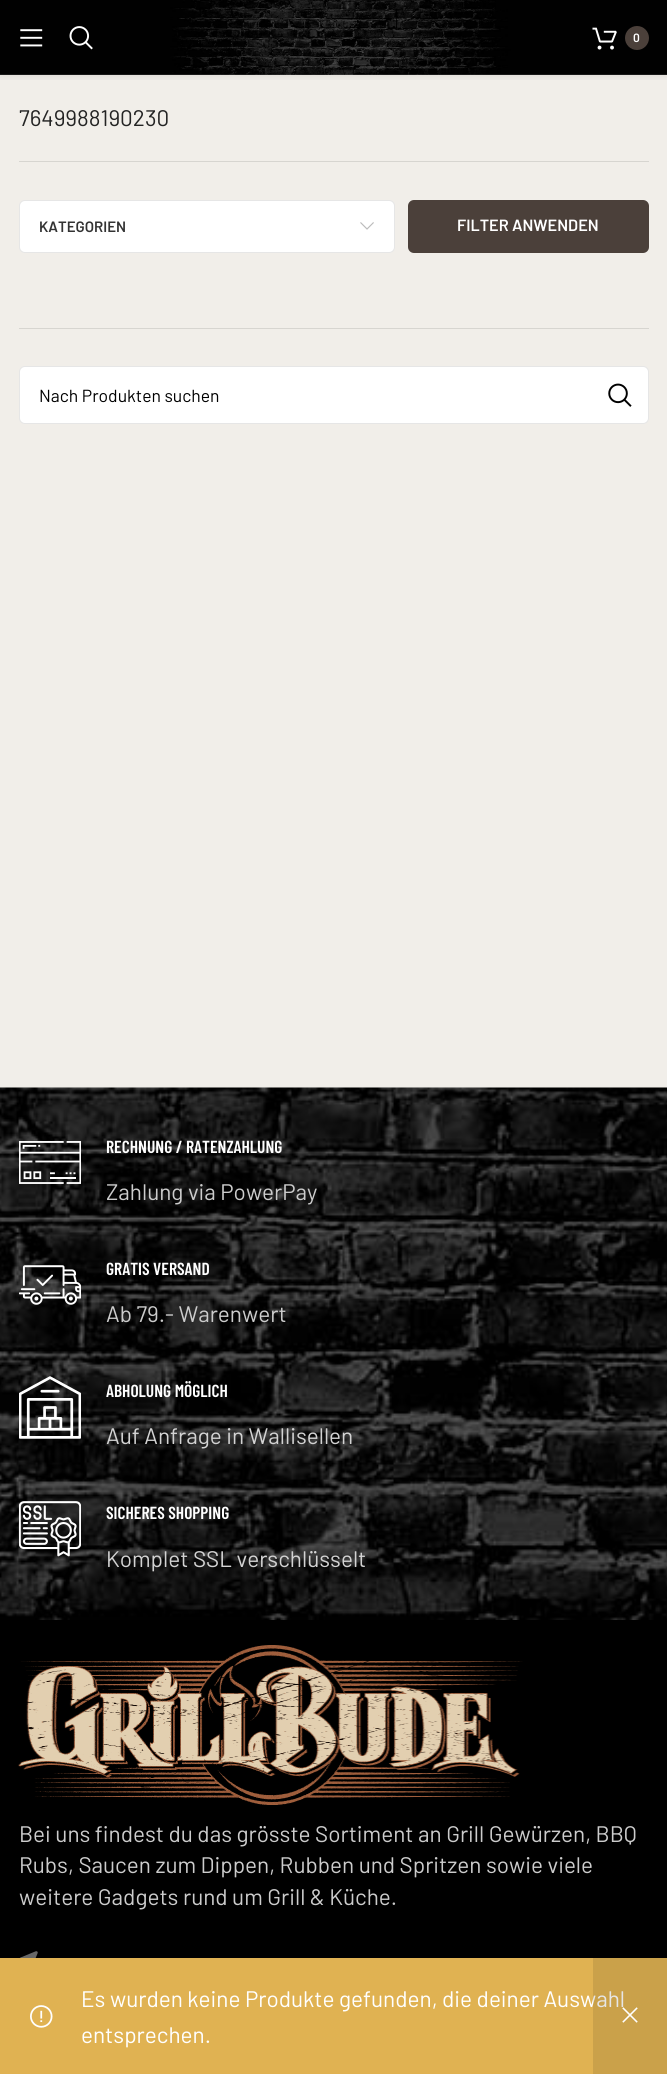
import math
import cairo


def round_path(ctx, x, y, w, h, r):
	ctx.new_sub_path()
	for i, (u, v) in enumerate([(x + w - r, y + h - r), (x + r, y + h - r), (x + r, y + r), (x + w - r, y + r)]):
		ctx.arc(u, v, r, i * math.pi / 2, (i + 1) * math.pi / 2)
	ctx.close_path()

def blur_box(ctx, x, y, w, h, r, blur, alpha):
	ctx.push_group_with_content(cairo.CONTENT_ALPHA)
	ctx.set_operator(cairo.OPERATOR_SOURCE)
	for i in range(15, -16, -2):
		e = blur * i / 6
		if min(w, h) + 2 * e > 0:
			ctx.set_source_rgba(0, 0, 0, alpha * math.erfc((i - 1) / 8.5) / 2)
			round_path(ctx, x - e, y - e, w + 2 * e, h + 2 * e, max(0, min(r + e + blur * .6, min(w, h) / 2 + e)))
			ctx.fill()
	ctx.mask(ctx.pop_group())

def paste(ctx, path, x, y, w, h):
	ctx.save()
	ctx.set_source_surface(cairo.ImageSurface.create_from_png(path), x, y)
	ctx.rectangle(x, y, w, h)
	ctx.fill()
	ctx.restore()

def draw(ctx):
	ctx.set_source_rgb(1, 1, 1)
	ctx.paint()
	paste(ctx, 'media/1.png', 0, 0, 667, 75)
	ctx.set_source_rgb(0.945, 0.933, 0.914)
	ctx.rectangle(0, 75, 667, 1013)
	ctx.fill()
	ctx.save()
	ctx.rectangle(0, 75, 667, 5)
	ctx.clip()
	ctx.set_source_rgb(0, 0, 0)
	blur_box(ctx, 0, 1, 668, 75, 0, 5, 0.1)
	ctx.restore()
	paste(ctx, 'media/2.png', 20, 29, 23, 18)
	paste(ctx, 'media/3.png', 69, 26, 24, 24)
	paste(ctx, 'media/4.png', 592, 27, 25, 23)
	ctx.set_source_rgb(0.294, 0.251, 0.227)
	ctx.arc(637, 38, 12, 0, 2 * math.pi)
	ctx.fill()
	ctx.select_font_face('Barlow SemiBold')
	ctx.set_font_size(12)
	ctx.set_source_rgb(1, 1, 1)
	ctx.move_to(633, 42)
	ctx.show_text('0')
	ctx.select_font_face('Barlow')
	ctx.set_font_size(22.5)
	ctx.set_source_rgb(0.141, 0.141, 0.141)
	ctx.move_to(19, 126)
	ctx.show_text('7649988190230')
	ctx.set_source_rgb(0.843, 0.835, 0.816)
	ctx.rectangle(19, 161, 630, 1)
	ctx.fill()
	ctx.rectangle(19, 328, 630, 1)
	ctx.fill()
	ctx.set_source_rgb(1, 1, 1)
	round_path(ctx, 19, 200, 376, 53, 6)
	ctx.fill()
	round_path(ctx, 19.5, 200.5, 375, 52, 5.5)
	ctx.set_source_rgba(0, 0, 0, 0.1)
	ctx.set_line_width(1)
	ctx.stroke()
	ctx.select_font_face('Barlow SemiBold')
	ctx.set_font_size(15)
	ctx.set_source_rgb(0.2, 0.2, 0.2)
	ctx.move_to(39, 232)
	ctx.show_text('KATEGORIEN')
	paste(ctx, 'media/5.png', 360, 222, 14, 8)
	ctx.set_source_rgb(0.294, 0.251, 0.227)
	round_path(ctx, 408, 200, 241, 53, 6)
	ctx.fill()
	ctx.set_font_size(16.25)
	ctx.set_source_rgb(1, 1, 1)
	ctx.move_to(457, 231)
	ctx.show_text('FILTER ANWENDEN')
	round_path(ctx, 19, 366, 630, 58, 6)
	ctx.fill()
	round_path(ctx, 19.5, 366.5, 629, 57, 5.5)
	ctx.set_source_rgba(0, 0, 0, 0.1)
	ctx.stroke()
	ctx.select_font_face('Barlow')
	ctx.set_font_size(17.5)
	ctx.set_source_rgb(0, 0, 0)
	ctx.move_to(39, 402)
	ctx.show_text('Nach Produkten suchen')
	paste(ctx, 'media/6.png', 608, 383, 24, 24)
	ctx.set_source_rgb(0.878, 0.698, 0.322)
	ctx.rectangle(0, 1958, 667, 116)
	ctx.fill()
	ctx.set_font_size(22.5)
	ctx.set_source_rgb(1, 1, 1)
	ctx.move_to(81, 2007)
	ctx.show_text('Es wurden keine Produkte gefunden, die deiner Auswahl')
	ctx.set_source_rgba(0, 0, 0, 0.1)
	ctx.rectangle(593, 1958, 74, 116)
	ctx.fill()
	paste(ctx, 'media/7.png', 622, 2007, 16, 16)
	paste(ctx, 'media/8.png', 30, 2005, 23, 23)
	ctx.set_source_rgb(1, 1, 1)
	ctx.move_to(81, 2043)
	ctx.show_text('entsprechen.')
	paste(ctx, 'media/9.png', 0, 1087, 667, 533)
	paste(ctx, 'media/10.png', 19, 1141, 62, 43)
	ctx.select_font_face('Barlow Condensed SemiBold')
	ctx.set_font_size(17.5)
	ctx.move_to(106, 1153)
	ctx.show_text('RECHNUNG / RATENZAHLUNG')
	ctx.select_font_face('Barlow')
	ctx.set_font_size(22.5)
	ctx.set_source_rgb(0.8, 0.8, 0.8)
	ctx.move_to(106, 1200)
	ctx.show_text('Zahlung via PowerPay')
	paste(ctx, 'media/11.png', 19, 1265, 62, 40)
	ctx.select_font_face('Barlow Condensed SemiBold')
	ctx.set_font_size(17.5)
	ctx.set_source_rgb(1, 1, 1)
	ctx.move_to(106, 1275)
	ctx.show_text('GRATIS VERSAND')
	ctx.select_font_face('Barlow')
	ctx.set_font_size(22.5)
	ctx.set_source_rgb(0.8, 0.8, 0.8)
	ctx.move_to(106, 1322)
	ctx.show_text('Ab 79.- Warenwert')
	paste(ctx, 'media/12.png', 19, 1376, 62, 63)
	ctx.select_font_face('Barlow Condensed SemiBold')
	ctx.set_font_size(17.5)
	ctx.set_source_rgb(1, 1, 1)
	ctx.move_to(106, 1397)
	ctx.show_text('ABHOLUNG MÖGLICH')
	ctx.select_font_face('Barlow')
	ctx.set_font_size(22.5)
	ctx.set_source_rgb(0.827, 0.827, 0.827)
	ctx.move_to(106, 1444)
	ctx.show_text('Auf Anfrage in Wallisellen')
	paste(ctx, 'media/13.png', 19, 1501, 62, 56)
	ctx.select_font_face('Barlow Condensed SemiBold')
	ctx.set_font_size(17.5)
	ctx.set_source_rgb(1, 1, 1)
	ctx.move_to(106, 1519)
	ctx.show_text('SICHERES SHOPPING')
	ctx.select_font_face('Barlow')
	ctx.set_font_size(22.5)
	ctx.set_source_rgb(0.827, 0.827, 0.827)
	ctx.move_to(106, 1567)
	ctx.show_text('Komplet SSL verschlüsselt')
	ctx.set_source_rgb(0, 0, 0)
	ctx.rectangle(0, 1620, 667, 338)
	ctx.fill()
	paste(ctx, 'media/14.png', 18, 1645, 505, 160)
	ctx.set_source_rgb(0.8, 0.8, 0.8)
	for x, y, s in [
		(19, 1842, 'Bei uns findest du das grösste Sortiment an Grill Gewürzen, BBQ'),
		(19, 1873, 'Rubs, Saucen zum Dippen, Rubben und Spritzen sowie viele'),
		(19, 1905, 'weitere Gadgets rund um Grill & Küche.'),
	]:
		ctx.move_to(x, y)
		ctx.show_text(s)
	paste(ctx, 'media/15.png', 19, 1951, 19, 7)


surface = cairo.ImageSurface(cairo.FORMAT_RGB24, 667, 2074)
ctx = cairo.Context(surface)
options = cairo.FontOptions()
options.set_hint_metrics(cairo.HINT_METRICS_OFF)
options.set_hint_style(cairo.HINT_STYLE_NONE)
ctx.set_font_options(options)
ctx.set_miter_limit(4)
draw(ctx)
surface.write_to_png('image.png')
